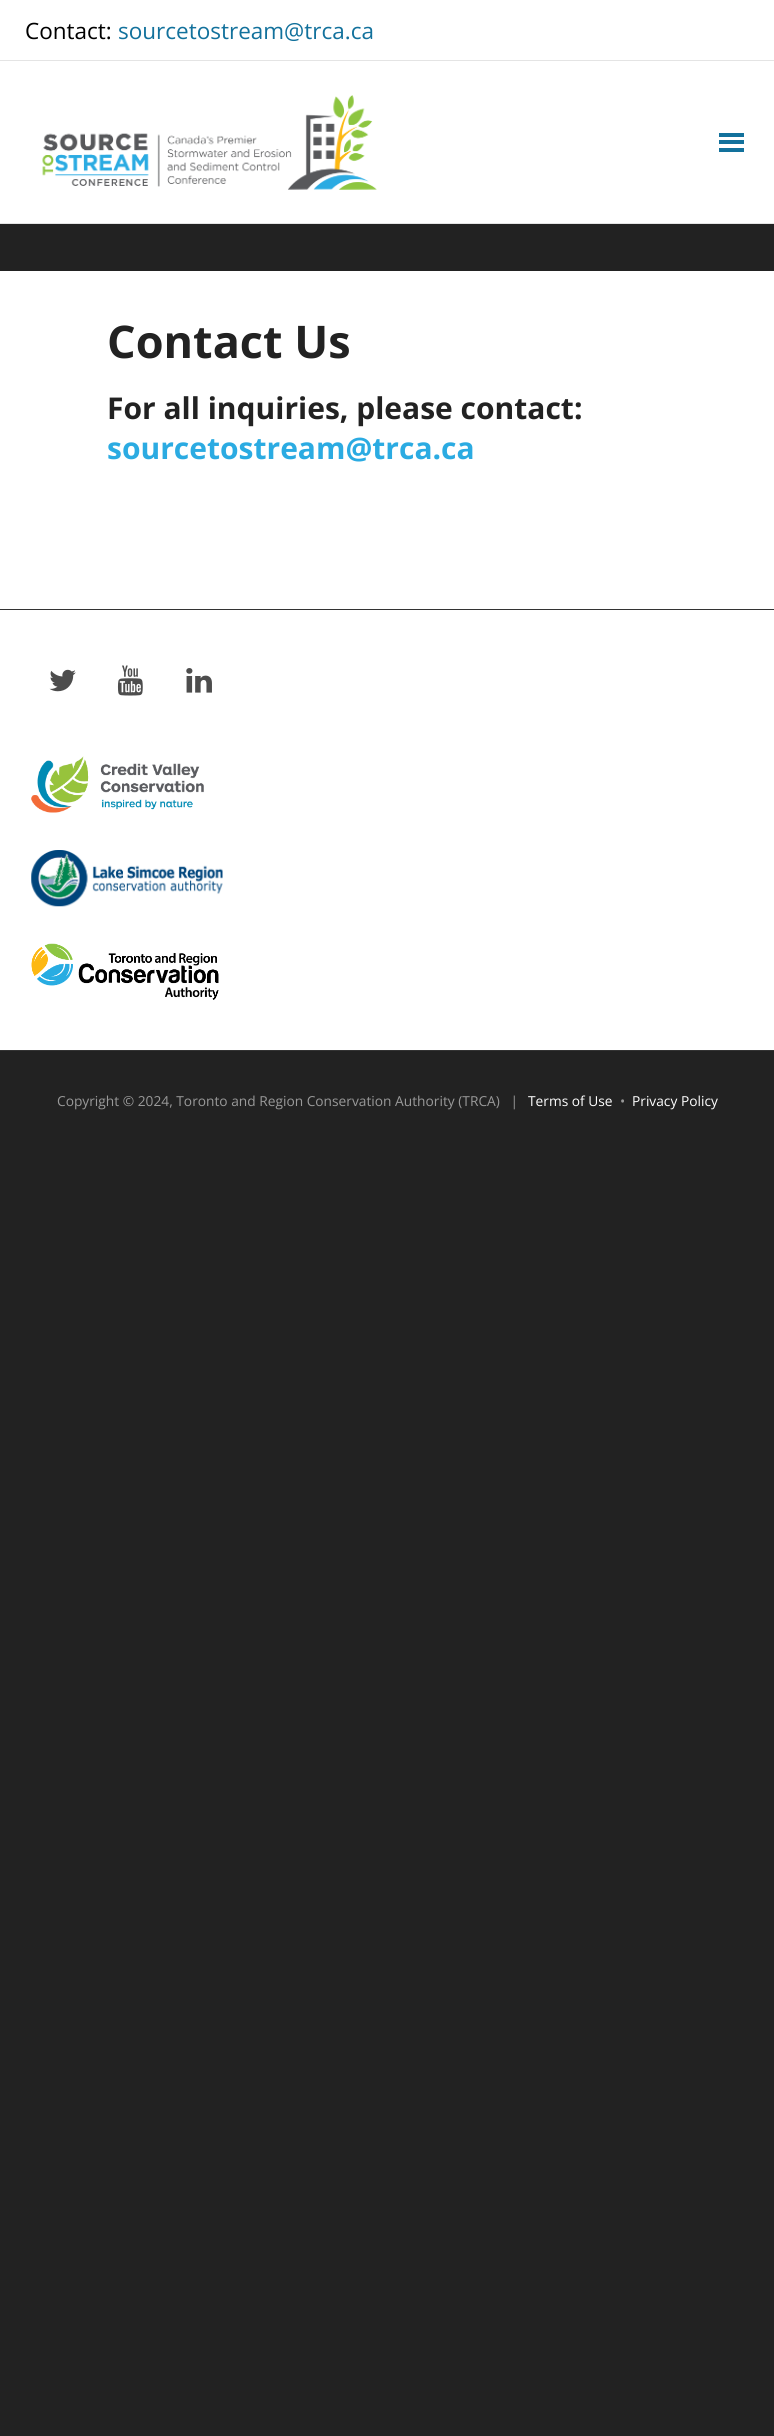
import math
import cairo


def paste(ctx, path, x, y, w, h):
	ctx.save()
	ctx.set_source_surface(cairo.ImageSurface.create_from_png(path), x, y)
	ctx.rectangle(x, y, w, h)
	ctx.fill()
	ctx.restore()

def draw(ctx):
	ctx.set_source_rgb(0.133, 0.133, 0.133)
	ctx.paint()
	ctx.set_source_rgb(1, 1, 1)
	ctx.rectangle(0, 0, 774, 60)
	ctx.fill()
	ctx.set_source_rgb(0.894, 0.894, 0.894)
	ctx.rectangle(0, 60, 774, 1)
	ctx.fill()
	ctx.select_font_face('Open Sans')
	ctx.set_font_size(22.5)
	ctx.set_source_rgb(0, 0, 0)
	ctx.move_to(25, 39)
	ctx.show_text('Contact:')
	ctx.set_source_rgb(0.071, 0.443, 0.612)
	ctx.move_to(118, 39)
	ctx.show_text('sourcetostream@trca.ca')
	ctx.set_source_rgb(1, 1, 1)
	ctx.rectangle(0, 61, 774, 162)
	ctx.fill()
	ctx.set_source_rgb(0.894, 0.894, 0.894)
	ctx.rectangle(0, 223, 774, 1)
	ctx.fill()
	paste(ctx, 'media/1.png', 42, 95, 335, 95)
	ctx.set_source_rgb(0.071, 0.443, 0.612)
	ctx.rectangle(719, 140, 25, 4)
	ctx.rectangle(719, 133, 25, 4)
	ctx.rectangle(719, 148, 25, 4)
	ctx.fill()
	ctx.set_source_rgb(1, 1, 1)
	ctx.rectangle(0, 271, 774, 338)
	ctx.fill()
	ctx.select_font_face('Open Sans', cairo.FONT_SLANT_NORMAL, cairo.FONT_WEIGHT_BOLD)
	ctx.set_font_size(45)
	ctx.set_source_rgb(0.133, 0.133, 0.133)
	ctx.move_to(107, 358)
	ctx.show_text('Contact Us')
	ctx.set_font_size(30)
	ctx.move_to(107, 419)
	ctx.show_text('For all inquiries, please contact:')
	ctx.set_source_rgb(0.169, 0.671, 0.886)
	ctx.move_to(107, 459)
	ctx.show_text('sourcetostream@trca.ca')
	ctx.set_source_rgb(1, 1, 1)
	ctx.rectangle(0, 610, 774, 440)
	ctx.fill()
	ctx.set_source_rgb(0.2, 0.2, 0.2)
	ctx.rectangle(0, 609, 774, 1)
	ctx.fill()
	paste(ctx, 'media/2.png', 49, 669, 27, 23)
	paste(ctx, 'media/3.png', 117, 665, 26, 31)
	paste(ctx, 'media/4.png', 186, 668, 26, 25)
	paste(ctx, 'media/5.png', 31, 756, 173, 57)
	paste(ctx, 'media/6.png', 31, 850, 192, 57)
	paste(ctx, 'media/7.png', 31, 943, 188, 57)
	ctx.rectangle(0, 1050, 774, 1)
	ctx.fill()
	ctx.select_font_face('Open Sans')
	ctx.set_font_size(13.75)
	ctx.set_source_rgb(0.6, 0.6, 0.6)
	ctx.move_to(57, 1106)
	ctx.show_text('Copyright © 2024, Toronto and Region Conservation Authority (TRCA)   |')
	ctx.set_source_rgb(1, 1, 1)
	ctx.move_to(528, 1106)
	ctx.show_text('Terms of Use')
	ctx.set_source_rgb(0.6, 0.6, 0.6)
	ctx.move_to(620, 1106)
	ctx.show_text('•')
	ctx.set_source_rgb(1, 1, 1)
	ctx.move_to(632, 1106)
	ctx.show_text('Privacy Policy')


surface = cairo.ImageSurface(cairo.FORMAT_RGB24, 774, 2436)
ctx = cairo.Context(surface)
options = cairo.FontOptions()
options.set_hint_metrics(cairo.HINT_METRICS_OFF)
options.set_hint_style(cairo.HINT_STYLE_NONE)
ctx.set_font_options(options)
ctx.set_miter_limit(4)
draw(ctx)
surface.write_to_png('image.png')
